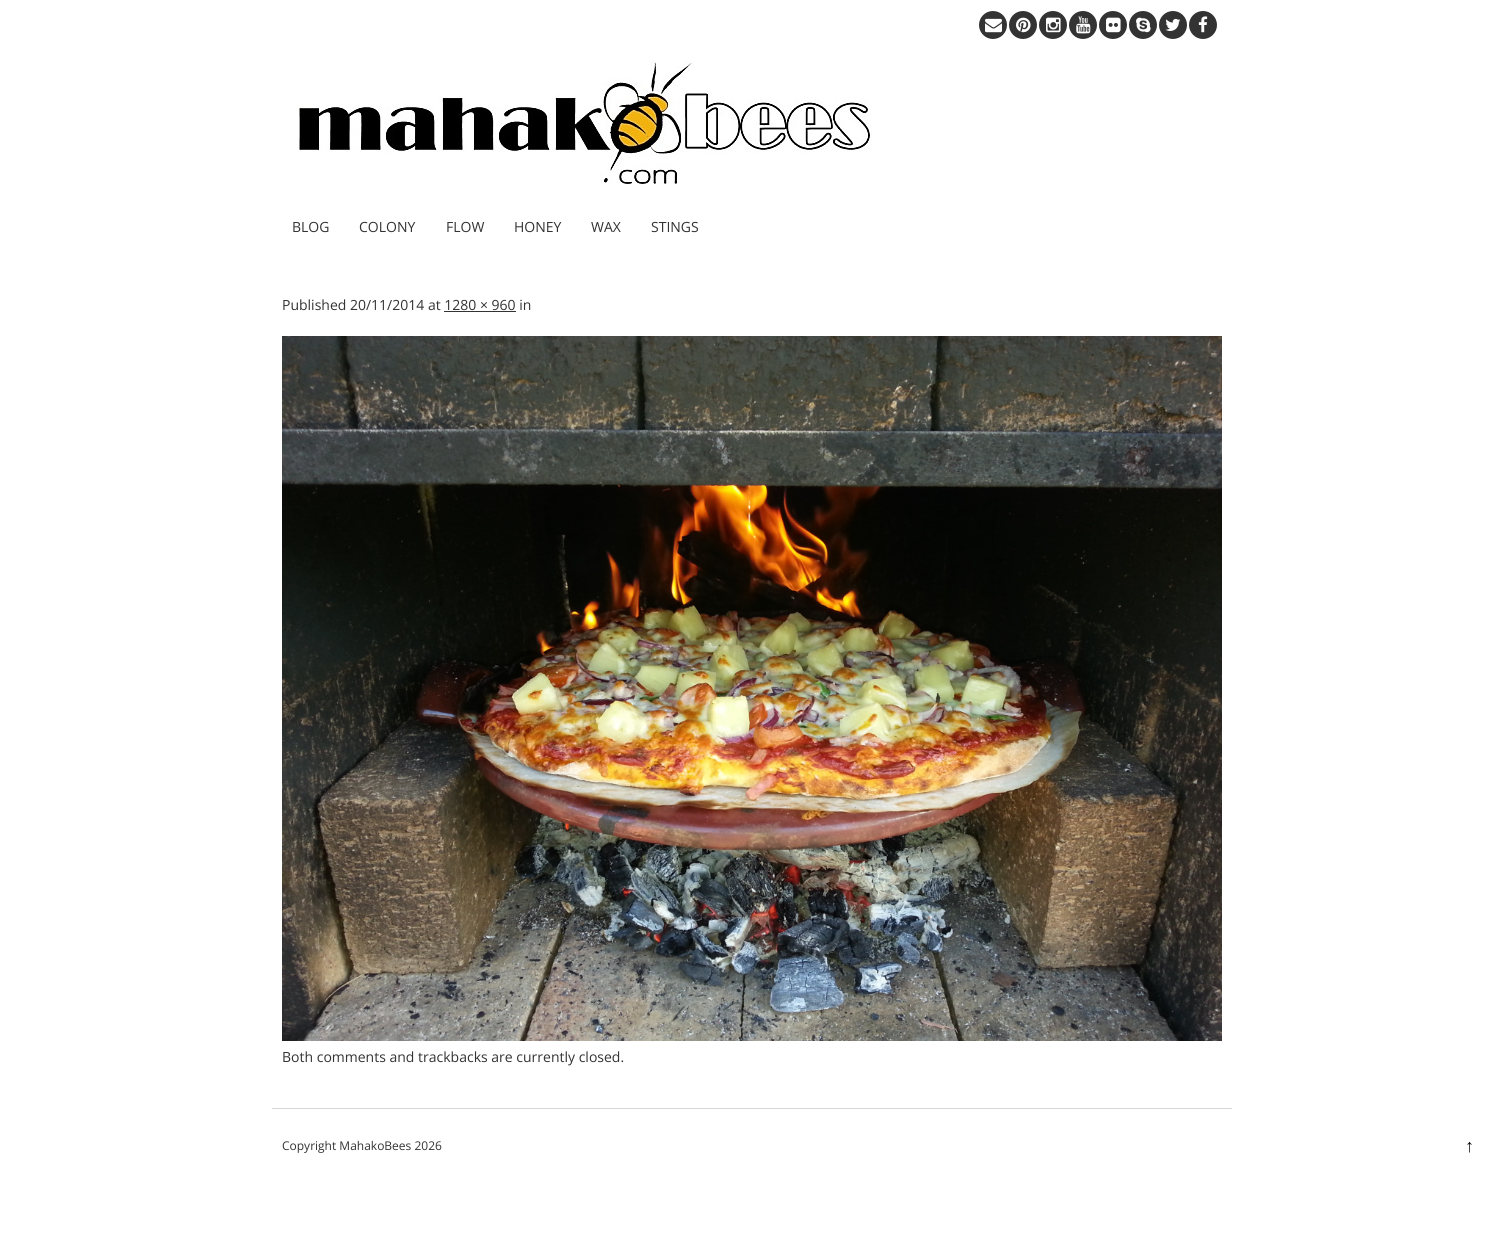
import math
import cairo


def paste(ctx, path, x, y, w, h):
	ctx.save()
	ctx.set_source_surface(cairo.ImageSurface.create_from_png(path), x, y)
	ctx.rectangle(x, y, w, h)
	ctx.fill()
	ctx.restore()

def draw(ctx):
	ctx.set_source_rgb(1, 1, 1)
	ctx.paint()
	ctx.set_source_rgb(0.2, 0.2, 0.2)
	ctx.arc(993, 25, 14, 0, 2 * math.pi)
	ctx.fill()
	paste(ctx, 'media/1.png', 985, 18, 17, 15)
	ctx.arc(1023, 25, 14, 0, 2 * math.pi)
	ctx.fill()
	paste(ctx, 'media/2.png', 1016, 17, 15, 16)
	ctx.arc(1053, 25, 14, 0, 2 * math.pi)
	ctx.fill()
	paste(ctx, 'media/3.png', 1046, 17, 15, 16)
	ctx.arc(1083, 25, 14, 0, 2 * math.pi)
	ctx.fill()
	paste(ctx, 'media/4.png', 1076, 16, 15, 18)
	ctx.arc(1113, 25, 14, 0, 2 * math.pi)
	ctx.fill()
	paste(ctx, 'media/5.png', 1106, 17, 15, 16)
	ctx.arc(1143, 25, 14, 0, 2 * math.pi)
	ctx.fill()
	paste(ctx, 'media/6.png', 1136, 17, 15, 16)
	ctx.arc(1173, 25, 14, 0, 2 * math.pi)
	ctx.fill()
	paste(ctx, 'media/7.png', 1165, 18, 16, 13)
	ctx.arc(1203, 25, 14, 0, 2 * math.pi)
	ctx.fill()
	paste(ctx, 'media/8.png', 1198, 16, 10, 17)
	paste(ctx, 'media/9.png', 299, 61, 573, 123)
	ctx.select_font_face('Open Sans')
	ctx.set_font_size(14)
	for x, y, s in [
		(292, 232, 'BLOG'),
		(359, 232, 'COLONY'),
		(446, 232, 'FLOW'),
		(514, 232, 'HONEY'),
		(591, 232, 'WAX'),
		(651, 232, 'STINGS'),
		(282, 310, 'Published 20/11/2014 at 1280 × 960 in'),
	]:
		ctx.move_to(x, y)
		ctx.show_text(s)
	ctx.rectangle(444, 311, 72, 1)
	ctx.fill()
	paste(ctx, 'media/10.png', 282, 336, 940, 705)
	ctx.move_to(282, 1062)
	ctx.show_text('Both comments and trackbacks are currently closed.')
	ctx.set_source_rgb(0.839, 0.839, 0.839)
	ctx.rectangle(272, 1108, 960, 1)
	ctx.fill()
	ctx.set_font_size(12)
	ctx.set_source_rgb(0.2, 0.2, 0.2)
	ctx.move_to(282, 1150)
	ctx.show_text('Copyright MahakoBees 2026')
	ctx.select_font_face('Liberation Sans')
	ctx.set_font_size(18)
	ctx.set_source_rgb(0.024, 0.024, 0.024)
	ctx.move_to(1465, 1152)
	ctx.show_text('↑')


surface = cairo.ImageSurface(cairo.FORMAT_RGB24, 1504, 1251)
ctx = cairo.Context(surface)
options = cairo.FontOptions()
options.set_hint_metrics(cairo.HINT_METRICS_OFF)
options.set_hint_style(cairo.HINT_STYLE_NONE)
ctx.set_font_options(options)
ctx.set_miter_limit(4)
draw(ctx)
surface.write_to_png('image.png')
